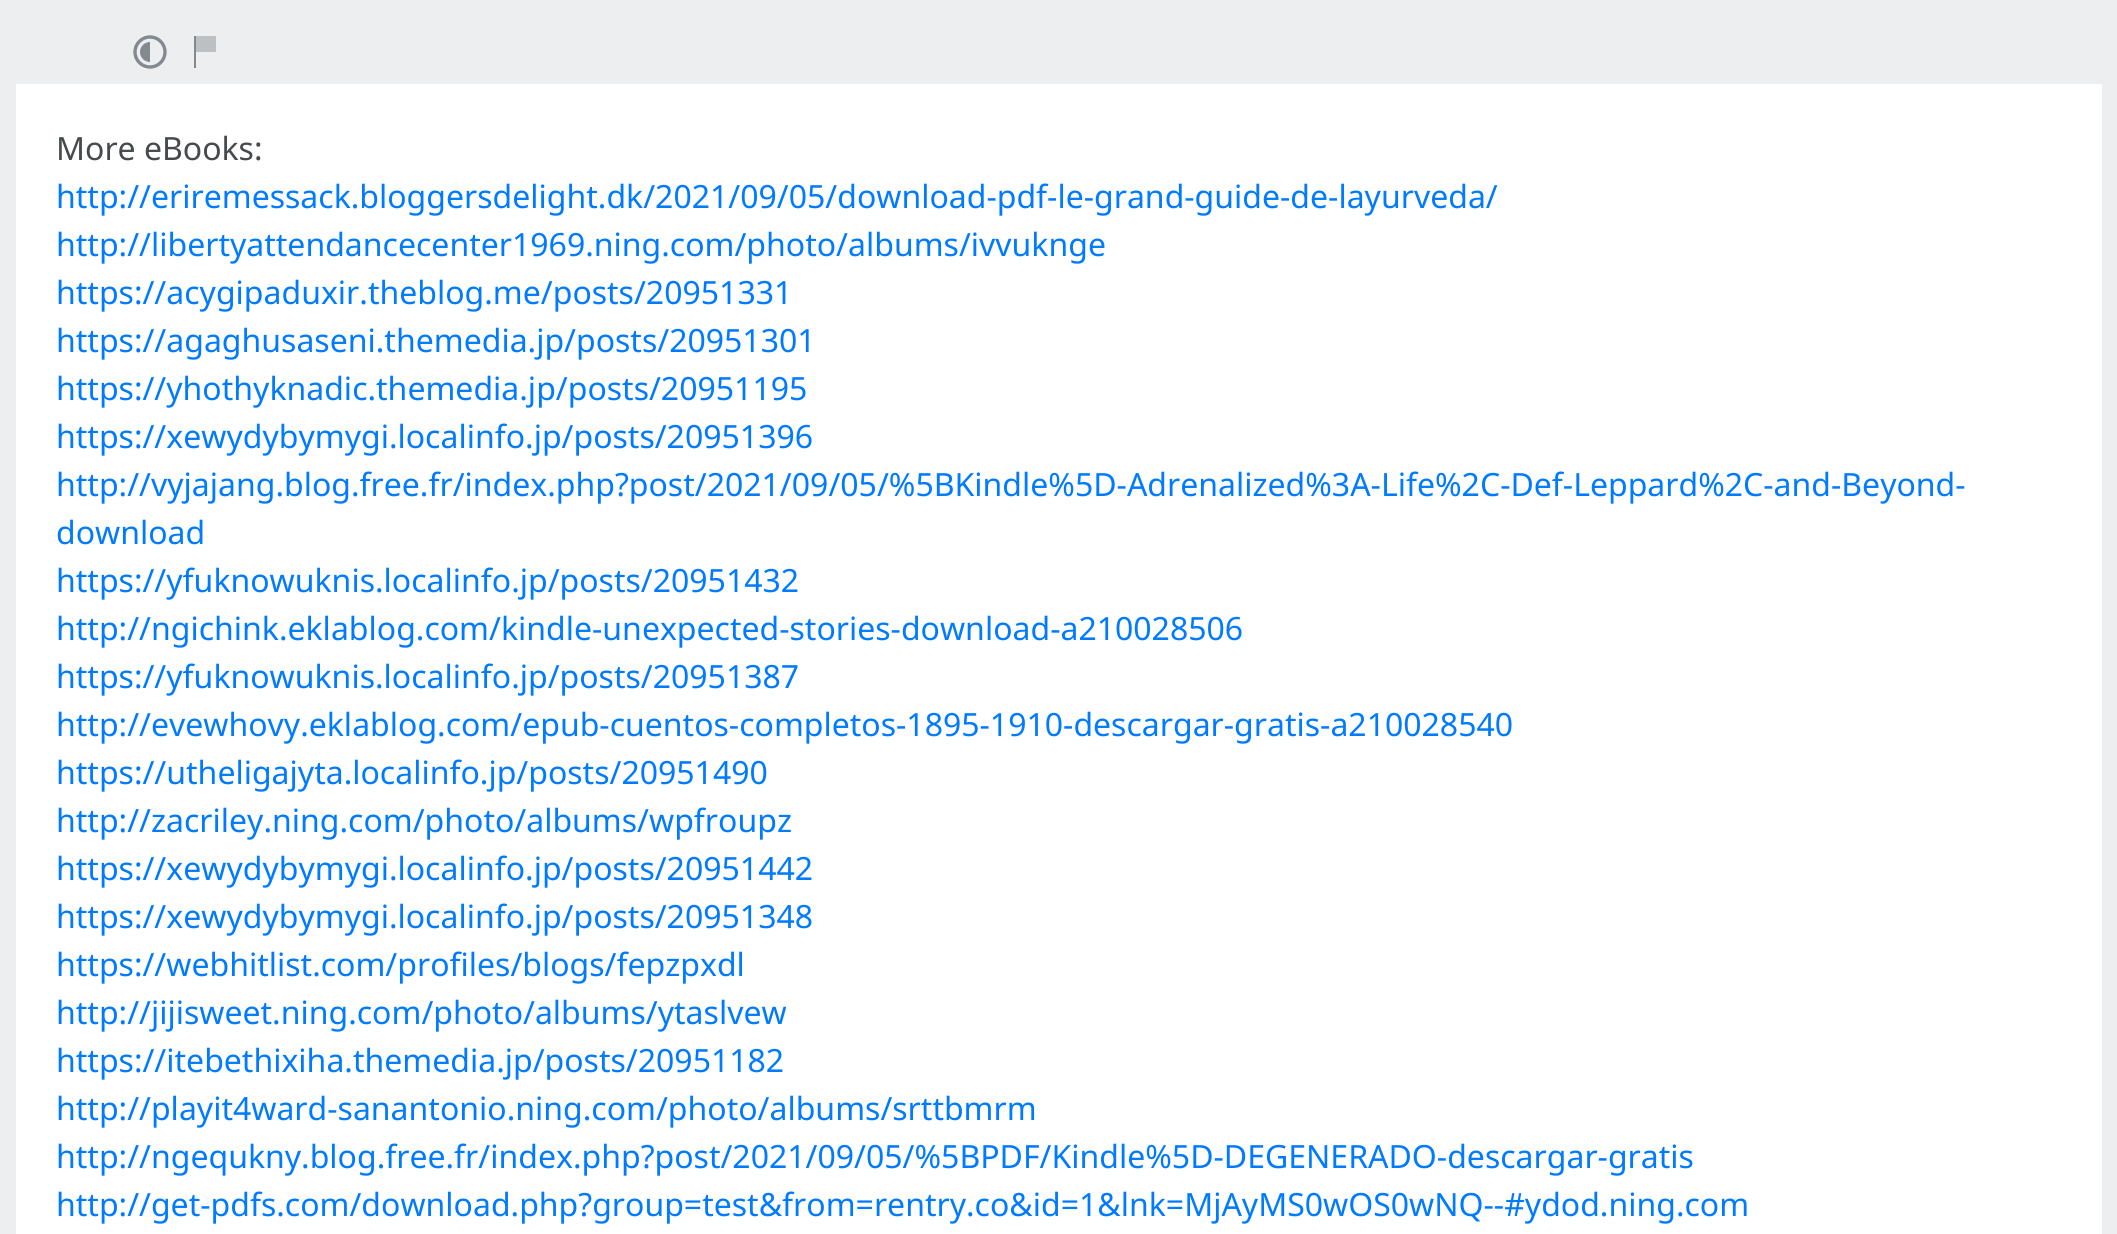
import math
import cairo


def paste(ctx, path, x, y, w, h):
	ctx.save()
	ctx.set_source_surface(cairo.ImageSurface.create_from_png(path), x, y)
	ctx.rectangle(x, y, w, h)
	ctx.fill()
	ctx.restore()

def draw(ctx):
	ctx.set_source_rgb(0.929, 0.933, 0.941)
	ctx.paint()
	paste(ctx, 'media/1.png', 133, 35, 34, 34)
	ctx.set_source_rgb(0.514, 0.537, 0.557)
	ctx.rectangle(194, 36, 2, 32)
	ctx.fill()
	ctx.set_source_rgb(0.741, 0.753, 0.761)
	ctx.rectangle(196, 36, 20, 16)
	ctx.fill()
	ctx.set_source_rgb(1, 1, 1)
	ctx.rectangle(16, 84, 2086, 1150)
	ctx.fill()
	ctx.select_font_face('Noto Sans')
	ctx.set_font_size(32)
	ctx.set_source_rgb(0.275, 0.29, 0.298)
	ctx.move_to(56, 160)
	ctx.show_text('More eBooks:')
	ctx.set_source_rgb(0, 0.482, 1)
	for x, y, s in [
		(56, 208, 'http://eriremessack.bloggersdelight.dk/2021/09/05/download-pdf-le-grand-guide-de-layurveda/'),
		(56, 256, 'http://libertyattendancecenter1969.ning.com/photo/albums/ivvuknge'),
		(56, 304, 'https://acygipaduxir.theblog.me/posts/20951331'),
		(56, 352, 'https://agaghusaseni.themedia.jp/posts/20951301'),
		(56, 400, 'https://yhothyknadic.themedia.jp/posts/20951195'),
		(56, 448, 'https://xewydybymygi.localinfo.jp/posts/20951396'),
		(56, 496, 'http://vyjajang.blog.free.fr/index.php?post/2021/09/05/%5BKindle%5D-Adrenalized%3A-Life%2C-Def-Leppard%2C-and-Beyond-'),
		(56, 544, 'download'),
		(56, 592, 'https://yfuknowuknis.localinfo.jp/posts/20951432'),
		(56, 640, 'http://ngichink.eklablog.com/kindle-unexpected-stories-download-a210028506'),
		(56, 688, 'https://yfuknowuknis.localinfo.jp/posts/20951387'),
		(56, 736, 'http://evewhovy.eklablog.com/epub-cuentos-completos-1895-1910-descargar-gratis-a210028540'),
		(56, 784, 'https://utheligajyta.localinfo.jp/posts/20951490'),
		(56, 832, 'http://zacriley.ning.com/photo/albums/wpfroupz'),
		(56, 880, 'https://xewydybymygi.localinfo.jp/posts/20951442'),
		(56, 928, 'https://xewydybymygi.localinfo.jp/posts/20951348'),
		(56, 976, 'https://webhitlist.com/profiles/blogs/fepzpxdl'),
		(56, 1024, 'http://jijisweet.ning.com/photo/albums/ytaslvew'),
		(56, 1072, 'https://itebethixiha.themedia.jp/posts/20951182'),
		(56, 1120, 'http://playit4ward-sanantonio.ning.com/photo/albums/srttbmrm'),
		(56, 1168, 'http://ngequkny.blog.free.fr/index.php?post/2021/09/05/%5BPDF/Kindle%5D-DEGENERADO-descargar-gratis'),
		(56, 1216, 'http://get-pdfs.com/download.php?group=test&from=rentry.co&id=1&lnk=MjAyMS0wOS0wNQ--#ydod.ning.com'),
	]:
		ctx.move_to(x, y)
		ctx.show_text(s)


surface = cairo.ImageSurface(cairo.FORMAT_RGB24, 2117, 1234)
ctx = cairo.Context(surface)
options = cairo.FontOptions()
options.set_hint_metrics(cairo.HINT_METRICS_OFF)
options.set_hint_style(cairo.HINT_STYLE_NONE)
ctx.set_font_options(options)
ctx.set_miter_limit(4)
draw(ctx)
surface.write_to_png('image.png')
